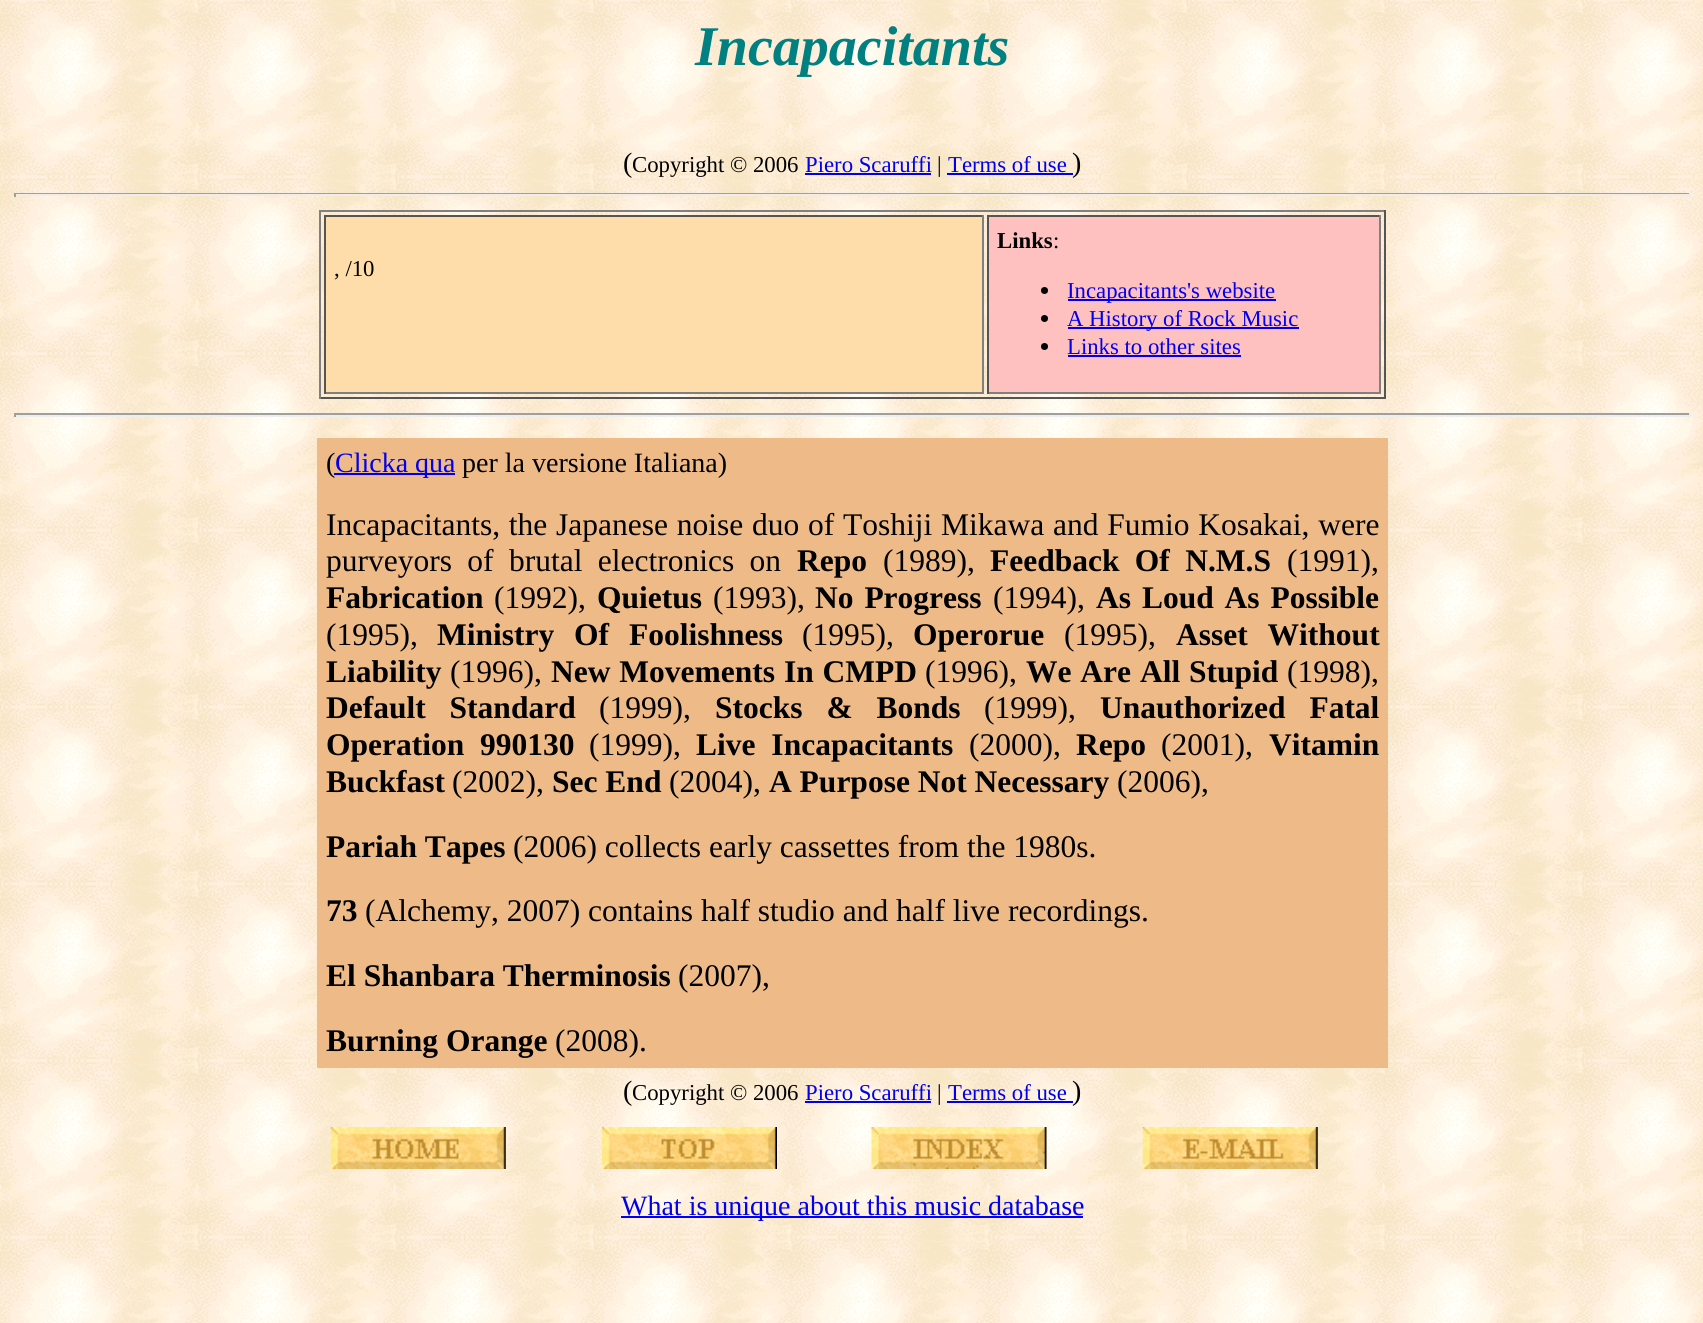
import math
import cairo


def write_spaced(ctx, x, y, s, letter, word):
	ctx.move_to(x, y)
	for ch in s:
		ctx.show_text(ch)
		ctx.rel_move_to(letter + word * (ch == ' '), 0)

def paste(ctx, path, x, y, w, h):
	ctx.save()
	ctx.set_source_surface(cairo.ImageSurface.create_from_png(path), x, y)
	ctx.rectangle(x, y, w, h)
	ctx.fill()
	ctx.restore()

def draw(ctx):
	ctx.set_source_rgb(1, 1, 1)
	ctx.paint()
	paste(ctx, 'media/1.png', 0, 0, 1703, 1323)
	ctx.select_font_face('Liberation Serif', cairo.FONT_SLANT_ITALIC, cairo.FONT_WEIGHT_BOLD)
	ctx.set_font_size(56)
	ctx.set_source_rgb(0, 0.502, 0.502)
	ctx.move_to(695, 65)
	ctx.show_text('Incapacitants')
	ctx.select_font_face('Liberation Serif')
	ctx.set_font_size(28)
	ctx.set_source_rgb(0, 0, 0)
	ctx.move_to(623, 172)
	ctx.show_text('(')
	ctx.set_font_size(22.75)
	ctx.move_to(632, 172)
	ctx.show_text('Copyright © 2006')
	ctx.set_source_rgb(0, 0, 0.933)
	ctx.move_to(805, 172)
	ctx.show_text('Piero Scaruffi')
	ctx.rectangle(805, 173, 126, 2)
	ctx.fill()
	ctx.set_source_rgb(0, 0, 0)
	ctx.move_to(937, 172)
	ctx.show_text('|')
	ctx.set_source_rgb(0, 0, 0.933)
	ctx.move_to(948, 172)
	ctx.show_text('Terms of use')
	ctx.rectangle(947, 173, 126, 2)
	ctx.fill()
	ctx.set_font_size(28)
	ctx.set_source_rgb(0, 0, 0)
	ctx.move_to(1072, 172)
	ctx.show_text(')')
	ctx.set_source_rgb(0.624, 0.624, 0.624)
	ctx.rectangle(14, 193, 1677, 1)
	ctx.fill()
	ctx.set_source_rgb(0.933, 0.933, 0.933)
	ctx.rectangle(1689, 193, 2, 4)
	ctx.rectangle(14, 194, 1677, 2)
	ctx.fill()
	ctx.set_source_rgb(0.624, 0.624, 0.624)
	ctx.rectangle(14, 193, 2, 4)
	ctx.fill()
	ctx.set_source_rgb(0.502, 0.502, 0.502)
	ctx.rectangle(319, 210, 1067, 2)
	ctx.fill()
	ctx.set_source_rgb(0.333, 0.333, 0.333)
	ctx.rectangle(1384, 210, 2, 189)
	ctx.rectangle(319, 397, 1067, 2)
	ctx.fill()
	ctx.set_source_rgb(0.502, 0.502, 0.502)
	ctx.rectangle(319, 210, 2, 189)
	ctx.fill()
	ctx.set_source_rgb(1, 0.867, 0.667)
	ctx.rectangle(326, 217, 656, 175)
	ctx.fill()
	ctx.set_source_rgb(0.333, 0.333, 0.333)
	ctx.rectangle(324, 215, 660, 2)
	ctx.fill()
	ctx.set_source_rgb(0.502, 0.502, 0.502)
	ctx.rectangle(982, 215, 2, 179)
	ctx.rectangle(324, 392, 660, 2)
	ctx.fill()
	ctx.set_source_rgb(0.333, 0.333, 0.333)
	ctx.rectangle(324, 215, 2, 179)
	ctx.fill()
	ctx.set_font_size(22.75)
	ctx.set_source_rgb(0, 0, 0)
	ctx.move_to(334, 276)
	ctx.show_text(', /10')
	ctx.set_source_rgb(1, 0.753, 0.753)
	ctx.rectangle(989, 217, 390, 175)
	ctx.fill()
	ctx.set_source_rgb(0.333, 0.333, 0.333)
	ctx.rectangle(987, 215, 394, 2)
	ctx.fill()
	ctx.set_source_rgb(0.502, 0.502, 0.502)
	ctx.rectangle(1379, 215, 2, 179)
	ctx.rectangle(987, 392, 394, 2)
	ctx.fill()
	ctx.set_source_rgb(0.333, 0.333, 0.333)
	ctx.rectangle(987, 215, 2, 179)
	ctx.fill()
	ctx.select_font_face('Liberation Serif', cairo.FONT_SLANT_NORMAL, cairo.FONT_WEIGHT_BOLD)
	ctx.set_source_rgb(0, 0, 0)
	ctx.move_to(997, 248)
	ctx.show_text('Links')
	ctx.select_font_face('Liberation Serif')
	ctx.move_to(1053, 248)
	ctx.show_text(':')
	ctx.new_path()
	ctx.arc(1044.5, 290.5, 3.5, 0, 2 * math.pi)
	ctx.fill()
	ctx.set_source_rgb(0, 0, 0.933)
	ctx.rectangle(1068, 299, 208, 2)
	ctx.fill()
	ctx.move_to(1067, 298)
	ctx.show_text('Incapacitants\'s website')
	ctx.set_source_rgb(0, 0, 0)
	ctx.new_path()
	ctx.arc(1044.5, 318.5, 3.5, 0, 2 * math.pi)
	ctx.fill()
	ctx.set_source_rgb(0, 0, 0.933)
	ctx.rectangle(1068, 327, 231, 2)
	ctx.fill()
	ctx.move_to(1067, 326)
	ctx.show_text('A History of Rock Music')
	ctx.set_source_rgb(0, 0, 0)
	ctx.new_path()
	ctx.arc(1044.5, 346.5, 3.5, 0, 2 * math.pi)
	ctx.fill()
	ctx.set_source_rgb(0, 0, 0.933)
	ctx.move_to(1067, 354)
	ctx.show_text('Links to other sites')
	ctx.rectangle(1068, 355, 173, 2)
	ctx.fill()
	ctx.set_source_rgb(0.624, 0.624, 0.624)
	ctx.rectangle(14, 413, 1677, 2)
	ctx.fill()
	ctx.set_source_rgb(0.933, 0.933, 0.933)
	ctx.rectangle(1689, 413, 2, 4)
	ctx.rectangle(14, 415, 1677, 2)
	ctx.fill()
	ctx.set_source_rgb(0.624, 0.624, 0.624)
	ctx.rectangle(14, 413, 2, 4)
	ctx.fill()
	ctx.set_source_rgb(0.933, 0.733, 0.533)
	ctx.rectangle(317, 438, 1071, 630)
	ctx.fill()
	ctx.set_font_size(28)
	ctx.set_source_rgb(0, 0, 0)
	ctx.move_to(326, 472)
	ctx.show_text('(')
	ctx.set_source_rgb(0, 0, 0.933)
	ctx.rectangle(334, 473, 121, 2)
	ctx.fill()
	ctx.move_to(335, 472)
	ctx.show_text('Clicka qua')
	ctx.set_source_rgb(0, 0, 0)
	ctx.move_to(462, 472)
	ctx.show_text('per la versione Italiana)')
	ctx.set_font_size(31.5)
	write_spaced(ctx, 326, 535, 'Incapacitants, the Japanese noise duo of Toshiji Mikawa and Fumio Kosakai, were', 0, 0.9)
	write_spaced(ctx, 326, 571, 'purveyors of brutal electronics on', 0, 7.5)
	ctx.select_font_face('Liberation Serif', cairo.FONT_SLANT_NORMAL, cairo.FONT_WEIGHT_BOLD)
	ctx.move_to(797, 571)
	ctx.show_text('Repo')
	ctx.select_font_face('Liberation Serif')
	ctx.move_to(883, 571)
	ctx.show_text('(1989),')
	ctx.select_font_face('Liberation Serif', cairo.FONT_SLANT_NORMAL, cairo.FONT_WEIGHT_BOLD)
	write_spaced(ctx, 990, 571, 'Feedback Of N.M.S', 0, 7.5)
	ctx.select_font_face('Liberation Serif')
	ctx.move_to(1287, 571)
	ctx.show_text('(1991),')
	ctx.select_font_face('Liberation Serif', cairo.FONT_SLANT_NORMAL, cairo.FONT_WEIGHT_BOLD)
	ctx.move_to(326, 608)
	ctx.show_text('Fabrication')
	ctx.select_font_face('Liberation Serif')
	ctx.move_to(494, 608)
	ctx.show_text('(1992),')
	ctx.select_font_face('Liberation Serif', cairo.FONT_SLANT_NORMAL, cairo.FONT_WEIGHT_BOLD)
	ctx.move_to(597, 608)
	ctx.show_text('Quietus')
	ctx.select_font_face('Liberation Serif')
	ctx.move_to(713, 608)
	ctx.show_text('(1993),')
	ctx.select_font_face('Liberation Serif', cairo.FONT_SLANT_NORMAL, cairo.FONT_WEIGHT_BOLD)
	write_spaced(ctx, 815, 608, 'No Progress', 0, 3)
	ctx.select_font_face('Liberation Serif')
	ctx.move_to(993, 608)
	ctx.show_text('(1994),')
	ctx.select_font_face('Liberation Serif', cairo.FONT_SLANT_NORMAL, cairo.FONT_WEIGHT_BOLD)
	write_spaced(ctx, 1096, 608, 'As Loud As Possible', 0, 3)
	ctx.select_font_face('Liberation Serif')
	ctx.move_to(326, 645)
	ctx.show_text('(1995),')
	ctx.select_font_face('Liberation Serif', cairo.FONT_SLANT_NORMAL, cairo.FONT_WEIGHT_BOLD)
	write_spaced(ctx, 437, 645, 'Ministry Of Foolishness', 0, 12)
	ctx.select_font_face('Liberation Serif')
	ctx.move_to(802, 645)
	ctx.show_text('(1995),')
	ctx.select_font_face('Liberation Serif', cairo.FONT_SLANT_NORMAL, cairo.FONT_WEIGHT_BOLD)
	ctx.move_to(913, 645)
	ctx.show_text('Operorue')
	ctx.select_font_face('Liberation Serif')
	ctx.move_to(1064, 645)
	ctx.show_text('(1995),')
	ctx.select_font_face('Liberation Serif', cairo.FONT_SLANT_NORMAL, cairo.FONT_WEIGHT_BOLD)
	write_spaced(ctx, 1176, 645, 'Asset Without', 0, 12)
	ctx.move_to(326, 682)
	ctx.show_text('Liability')
	ctx.select_font_face('Liberation Serif')
	ctx.move_to(450, 682)
	ctx.show_text('(1996),')
	ctx.select_font_face('Liberation Serif', cairo.FONT_SLANT_NORMAL, cairo.FONT_WEIGHT_BOLD)
	write_spaced(ctx, 551, 682, 'New Movements In CMPD', 0, 1)
	ctx.select_font_face('Liberation Serif')
	ctx.move_to(925, 682)
	ctx.show_text('(1996),')
	ctx.select_font_face('Liberation Serif', cairo.FONT_SLANT_NORMAL, cairo.FONT_WEIGHT_BOLD)
	write_spaced(ctx, 1026, 682, 'We Are All Stupid', 0, 1)
	ctx.select_font_face('Liberation Serif')
	ctx.move_to(1287, 682)
	ctx.show_text('(1998),')
	ctx.select_font_face('Liberation Serif', cairo.FONT_SLANT_NORMAL, cairo.FONT_WEIGHT_BOLD)
	write_spaced(ctx, 326, 718, 'Default Standard', 0, 16)
	ctx.select_font_face('Liberation Serif')
	ctx.move_to(599, 718)
	ctx.show_text('(1999),')
	ctx.select_font_face('Liberation Serif', cairo.FONT_SLANT_NORMAL, cairo.FONT_WEIGHT_BOLD)
	write_spaced(ctx, 715, 718, 'Stocks & Bonds', 0, 16)
	ctx.select_font_face('Liberation Serif')
	ctx.move_to(984, 718)
	ctx.show_text('(1999),')
	ctx.select_font_face('Liberation Serif', cairo.FONT_SLANT_NORMAL, cairo.FONT_WEIGHT_BOLD)
	write_spaced(ctx, 1100, 718, 'Unauthorized Fatal', 0, 16)
	write_spaced(ctx, 326, 755, 'Operation 990130', 0, 8)
	ctx.select_font_face('Liberation Serif')
	ctx.move_to(589, 755)
	ctx.show_text('(1999),')
	ctx.select_font_face('Liberation Serif', cairo.FONT_SLANT_NORMAL, cairo.FONT_WEIGHT_BOLD)
	write_spaced(ctx, 696, 755, 'Live Incapacitants', 0, 8)
	ctx.select_font_face('Liberation Serif')
	ctx.move_to(969, 755)
	ctx.show_text('(2000),')
	ctx.select_font_face('Liberation Serif', cairo.FONT_SLANT_NORMAL, cairo.FONT_WEIGHT_BOLD)
	ctx.move_to(1076, 755)
	ctx.show_text('Repo')
	ctx.select_font_face('Liberation Serif')
	ctx.move_to(1161, 755)
	ctx.show_text('(2001),')
	ctx.select_font_face('Liberation Serif', cairo.FONT_SLANT_NORMAL, cairo.FONT_WEIGHT_BOLD)
	ctx.move_to(1269, 755)
	ctx.show_text('Vitamin')
	ctx.move_to(326, 792)
	ctx.show_text('Buckfast')
	ctx.select_font_face('Liberation Serif')
	ctx.move_to(452, 792)
	ctx.show_text('(2002),')
	ctx.select_font_face('Liberation Serif', cairo.FONT_SLANT_NORMAL, cairo.FONT_WEIGHT_BOLD)
	ctx.move_to(552, 792)
	ctx.show_text('Sec End')
	ctx.select_font_face('Liberation Serif')
	ctx.move_to(669, 792)
	ctx.show_text('(2004),')
	ctx.select_font_face('Liberation Serif', cairo.FONT_SLANT_NORMAL, cairo.FONT_WEIGHT_BOLD)
	ctx.move_to(769, 792)
	ctx.show_text('A Purpose Not Necessary')
	ctx.select_font_face('Liberation Serif')
	ctx.move_to(1117, 792)
	ctx.show_text('(2006),')
	ctx.select_font_face('Liberation Serif', cairo.FONT_SLANT_NORMAL, cairo.FONT_WEIGHT_BOLD)
	ctx.move_to(326, 857)
	ctx.show_text('Pariah Tapes')
	ctx.select_font_face('Liberation Serif')
	ctx.move_to(513, 857)
	ctx.show_text('(2006) collects early cassettes from the 1980s.')
	ctx.select_font_face('Liberation Serif', cairo.FONT_SLANT_NORMAL, cairo.FONT_WEIGHT_BOLD)
	ctx.move_to(326, 921)
	ctx.show_text('73')
	ctx.select_font_face('Liberation Serif')
	ctx.move_to(365, 921)
	ctx.show_text('(Alchemy, 2007) contains half studio and half live recordings.')
	ctx.select_font_face('Liberation Serif', cairo.FONT_SLANT_NORMAL, cairo.FONT_WEIGHT_BOLD)
	ctx.move_to(326, 986)
	ctx.show_text('El Shanbara Therminosis')
	ctx.select_font_face('Liberation Serif')
	ctx.move_to(678, 986)
	ctx.show_text('(2007),')
	ctx.select_font_face('Liberation Serif', cairo.FONT_SLANT_NORMAL, cairo.FONT_WEIGHT_BOLD)
	ctx.move_to(326, 1051)
	ctx.show_text('Burning Orange')
	ctx.select_font_face('Liberation Serif')
	ctx.move_to(555, 1051)
	ctx.show_text('(2008).')
	ctx.set_font_size(28)
	ctx.move_to(623, 1100)
	ctx.show_text('(')
	ctx.set_font_size(22.75)
	ctx.move_to(632, 1100)
	ctx.show_text('Copyright © 2006')
	ctx.set_source_rgb(0, 0, 0.933)
	ctx.move_to(805, 1100)
	ctx.show_text('Piero Scaruffi')
	ctx.rectangle(805, 1101, 126, 2)
	ctx.fill()
	ctx.set_source_rgb(0, 0, 0)
	ctx.move_to(937, 1100)
	ctx.show_text('|')
	ctx.set_source_rgb(0, 0, 0.933)
	ctx.move_to(948, 1100)
	ctx.show_text('Terms of use')
	ctx.rectangle(947, 1101, 126, 2)
	ctx.fill()
	ctx.set_font_size(28)
	ctx.set_source_rgb(0, 0, 0)
	ctx.move_to(1072, 1100)
	ctx.show_text(')')
	paste(ctx, 'media/2.png', 330, 1127, 176, 42)
	paste(ctx, 'media/3.png', 602, 1127, 175, 42)
	paste(ctx, 'media/4.png', 871, 1127, 176, 42)
	paste(ctx, 'media/5.png', 1142, 1127, 176, 42)
	ctx.set_source_rgb(0, 0, 0.933)
	ctx.rectangle(621, 1216, 462, 2)
	ctx.fill()
	ctx.move_to(621, 1215)
	ctx.show_text('What is unique about this music database')


surface = cairo.ImageSurface(cairo.FORMAT_RGB24, 1703, 1323)
ctx = cairo.Context(surface)
options = cairo.FontOptions()
options.set_hint_metrics(cairo.HINT_METRICS_OFF)
options.set_hint_style(cairo.HINT_STYLE_NONE)
ctx.set_font_options(options)
ctx.set_miter_limit(4)
draw(ctx)
surface.write_to_png('image.png')
